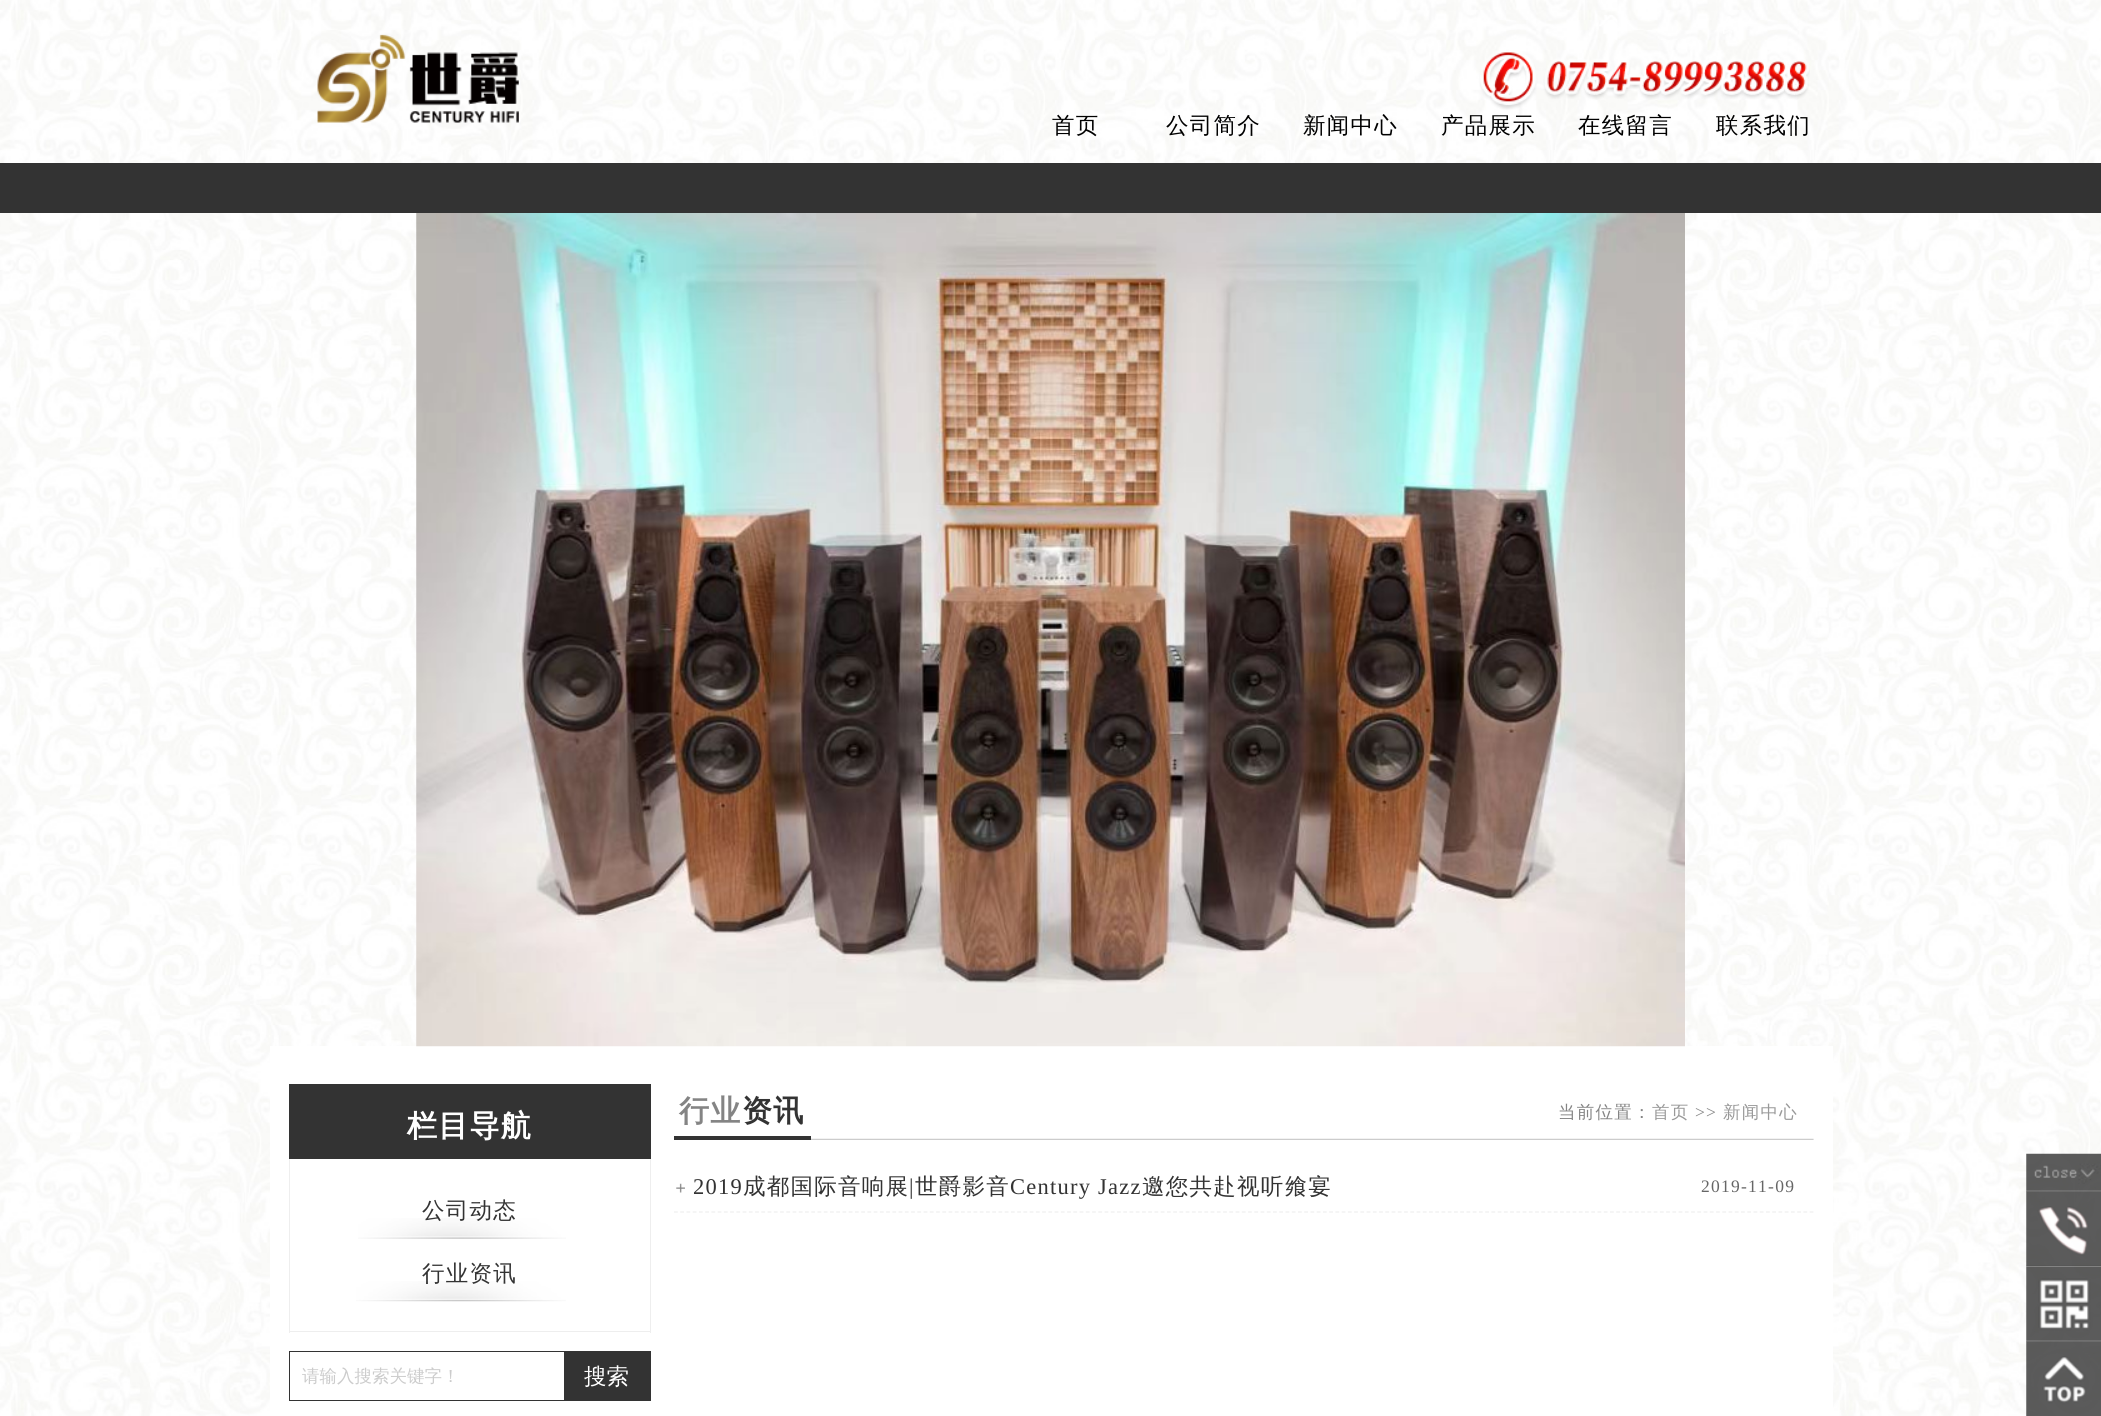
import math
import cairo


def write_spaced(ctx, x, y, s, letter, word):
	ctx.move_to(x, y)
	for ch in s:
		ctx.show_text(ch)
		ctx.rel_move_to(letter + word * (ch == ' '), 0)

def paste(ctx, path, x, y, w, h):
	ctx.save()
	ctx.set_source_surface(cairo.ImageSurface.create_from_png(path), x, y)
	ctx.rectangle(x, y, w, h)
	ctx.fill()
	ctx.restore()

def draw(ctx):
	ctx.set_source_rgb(1, 1, 1)
	ctx.paint()
	paste(ctx, 'media/1.png', 0, 0, 2101, 1416)
	paste(ctx, 'media/2.png', 1599, 15, 18, 19)
	paste(ctx, 'media/3.png', 1723, 16, 9, 18)
	paste(ctx, 'media/4.png', 317, 34, 1493, 89)
	ctx.set_source_rgb(0.2, 0.2, 0.2)
	ctx.rectangle(0, 163, 2101, 50)
	ctx.fill()
	ctx.select_font_face('WenQuanYi Zen Hei Medium')
	ctx.set_font_size(22.5)
	ctx.set_source_rgb(0, 0, 0)
	for x, y, s in [
		(1052, 133, '首页'),
		(1166, 133, '公司简介'),
		(1303, 133, '新闻中心'),
		(1441, 133, '产品展示'),
		(1578, 133, '在线留言'),
		(1716, 133, '联系我们'),
	]:
		write_spaced(ctx, x, y, s, 1.25, 0)
	ctx.set_source_rgb(1, 1, 1)
	ctx.rectangle(270, 1046, 1563, 370)
	ctx.fill()
	paste(ctx, 'media/5.png', 416, 213, 1269, 834)
	ctx.set_source_rgb(0.2, 0.2, 0.2)
	ctx.rectangle(289, 1084, 362, 75)
	ctx.fill()
	ctx.select_font_face('WenQuanYi Zen Hei', cairo.FONT_SLANT_NORMAL, cairo.FONT_WEIGHT_BOLD)
	ctx.set_font_size(30)
	ctx.set_source_rgb(1, 1, 1)
	write_spaced(ctx, 407, 1136, '栏目导航', 1.25, 0)
	ctx.set_source_rgb(0.933, 0.933, 0.933)
	ctx.rectangle(650, 1159, 1, 174)
	ctx.rectangle(289, 1331, 362, 1)
	ctx.rectangle(289, 1159, 1, 174)
	ctx.fill()
	paste(ctx, 'media/6.png', 358, 1218, 208, 21)
	ctx.select_font_face('WenQuanYi Zen Hei Medium')
	ctx.set_font_size(22.5)
	ctx.set_source_rgb(0.2, 0.2, 0.2)
	write_spaced(ctx, 422, 1218, '公司动态', 1.25, 0)
	paste(ctx, 'media/7.png', 356, 1281, 210, 21)
	write_spaced(ctx, 422, 1281, '行业资讯', 1.25, 0)
	ctx.rectangle(289, 1351, 275, 1)
	ctx.rectangle(289, 1400, 275, 1)
	ctx.rectangle(289, 1351, 1, 50)
	ctx.fill()
	ctx.set_font_size(17.5)
	ctx.set_source_rgb(0.8, 0.8, 0.8)
	ctx.move_to(302, 1382)
	ctx.show_text('请输入搜索关键字！')
	ctx.set_source_rgb(0.2, 0.2, 0.2)
	ctx.rectangle(564, 1351, 87, 50)
	ctx.fill()
	ctx.set_font_size(22.5)
	ctx.set_source_rgb(1, 1, 1)
	ctx.move_to(584, 1384)
	ctx.show_text('搜索')
	paste(ctx, 'media/8.png', 811, 1138, 1003, 2)
	ctx.set_source_rgb(0.2, 0.2, 0.2)
	ctx.rectangle(674, 1136, 137, 4)
	ctx.fill()
	ctx.select_font_face('WenQuanYi Zen Hei', cairo.FONT_SLANT_NORMAL, cairo.FONT_WEIGHT_BOLD)
	ctx.set_font_size(30)
	ctx.set_source_rgb(0.518, 0.518, 0.518)
	write_spaced(ctx, 679, 1121, '行业', 1.25, 0)
	ctx.set_source_rgb(0.2, 0.2, 0.2)
	write_spaced(ctx, 742, 1121, '资讯', 1.25, 0)
	ctx.select_font_face('WenQuanYi Zen Hei Medium')
	ctx.set_font_size(17.5)
	ctx.set_source_rgb(0.518, 0.518, 0.518)
	write_spaced(ctx, 1558, 1118, '当前位置：', 1.25, 0)
	ctx.set_source_rgb(0.6, 0.6, 0.6)
	write_spaced(ctx, 1652, 1118, '首页', 1.25, 0)
	ctx.select_font_face('Liberation Serif')
	ctx.set_source_rgb(0.518, 0.518, 0.518)
	write_spaced(ctx, 1695, 1118, '>>', 1.25, 0)
	ctx.select_font_face('WenQuanYi Zen Hei Medium')
	ctx.set_source_rgb(0.6, 0.6, 0.6)
	write_spaced(ctx, 1723, 1118, '新闻中心', 1.25, 0)
	ctx.new_path()
	ctx.move_to(674, 1212)
	ctx.line_to(1814, 1212)
	ctx.set_source_rgb(0.933, 0.933, 0.933)
	ctx.set_line_width(1.2)
	ctx.set_dash([3.75, 2.49])
	ctx.stroke()
	paste(ctx, 'media/9.png', 676, 1183, 9, 10)
	ctx.select_font_face('Liberation Serif')
	ctx.set_font_size(22.5)
	ctx.set_source_rgb(0.2, 0.2, 0.2)
	write_spaced(ctx, 693, 1194, '2019', 1.25, 0)
	ctx.select_font_face('WenQuanYi Zen Hei Medium')
	write_spaced(ctx, 743, 1194, '成都国际音响展', 1.25, 0)
	ctx.select_font_face('Liberation Serif')
	write_spaced(ctx, 909, 1194, '|', 1.25, 0)
	ctx.select_font_face('WenQuanYi Zen Hei Medium')
	write_spaced(ctx, 915, 1194, '世爵影音', 1.25, 0)
	ctx.select_font_face('Liberation Serif')
	write_spaced(ctx, 1010, 1194, 'Century Jazz', 1.25, 0)
	ctx.select_font_face('WenQuanYi Zen Hei Medium')
	write_spaced(ctx, 1142, 1194, '邀您共赴视听飨宴', 1.25, 0)
	ctx.select_font_face('Liberation Serif')
	ctx.set_font_size(17.5)
	ctx.set_source_rgb(0.4, 0.4, 0.4)
	write_spaced(ctx, 1701, 1192, '2019-11-09', 1.25, 0)
	paste(ctx, 'media/10.png', 2026, 1153, 75, 39)
	paste(ctx, 'media/11.png', 2026, 1191, 75, 76)
	paste(ctx, 'media/12.png', 2026, 1265, 75, 77)
	paste(ctx, 'media/13.png', 2026, 1341, 75, 75)


surface = cairo.ImageSurface(cairo.FORMAT_RGB24, 2101, 1416)
ctx = cairo.Context(surface)
options = cairo.FontOptions()
options.set_hint_metrics(cairo.HINT_METRICS_OFF)
options.set_hint_style(cairo.HINT_STYLE_NONE)
ctx.set_font_options(options)
ctx.set_miter_limit(4)
draw(ctx)
surface.write_to_png('image.png')
